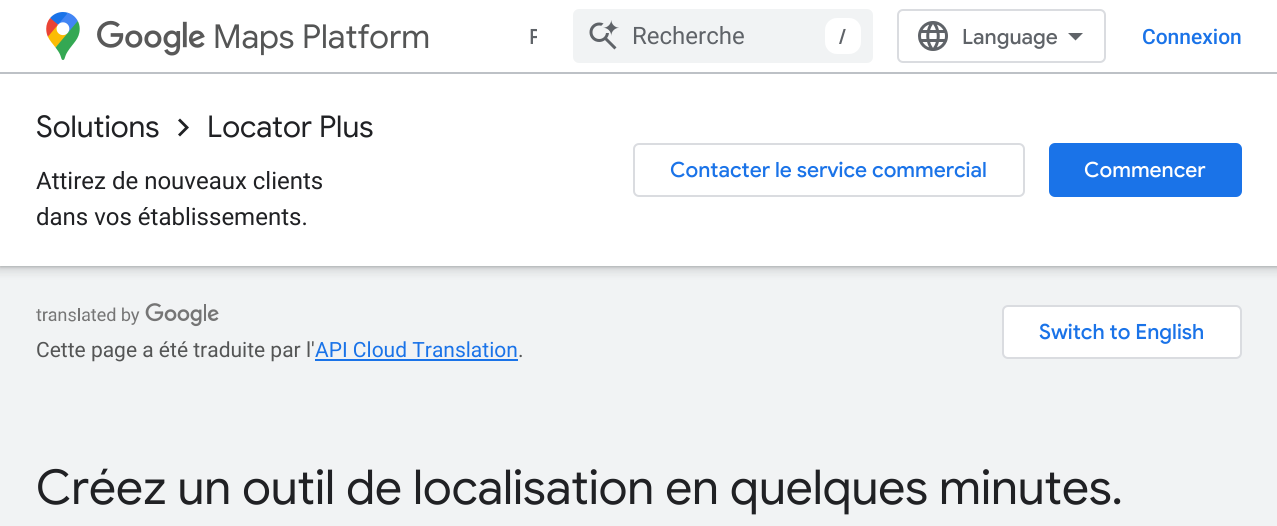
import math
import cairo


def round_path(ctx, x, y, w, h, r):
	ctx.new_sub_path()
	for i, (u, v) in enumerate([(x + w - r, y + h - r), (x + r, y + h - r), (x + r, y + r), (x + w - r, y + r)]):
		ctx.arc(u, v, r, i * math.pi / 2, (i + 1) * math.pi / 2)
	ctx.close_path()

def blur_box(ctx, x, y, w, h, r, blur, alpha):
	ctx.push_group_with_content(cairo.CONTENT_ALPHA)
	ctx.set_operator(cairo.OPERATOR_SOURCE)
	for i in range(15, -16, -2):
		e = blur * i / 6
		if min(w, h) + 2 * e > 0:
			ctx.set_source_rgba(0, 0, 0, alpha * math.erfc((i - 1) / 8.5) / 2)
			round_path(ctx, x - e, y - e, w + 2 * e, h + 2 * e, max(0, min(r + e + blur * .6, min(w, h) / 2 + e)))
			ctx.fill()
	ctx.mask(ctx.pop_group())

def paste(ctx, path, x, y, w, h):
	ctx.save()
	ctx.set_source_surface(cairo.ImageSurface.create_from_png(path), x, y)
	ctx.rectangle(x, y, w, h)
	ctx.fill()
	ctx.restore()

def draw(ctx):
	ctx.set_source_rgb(0.945, 0.953, 0.957)
	ctx.paint()
	ctx.set_source_rgb(0.235, 0.251, 0.263)
	blur_box(ctx, -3, 74, 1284, 198, 0, 4.5, 0.15)
	blur_box(ctx, 0, 75, 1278, 192, 0, 1.5, 0.3)
	ctx.set_source_rgb(1, 1, 1)
	ctx.rectangle(0, 0, 1277, 72)
	ctx.fill()
	ctx.set_source_rgb(0.741, 0.757, 0.776)
	ctx.rectangle(0, 72, 1277, 2)
	ctx.fill()
	paste(ctx, 'media/1.png', 46, 12, 34, 48)
	paste(ctx, 'media/2.png', 97, 20, 108, 36)
	ctx.select_font_face('Google Sans')
	ctx.set_font_size(33)
	ctx.set_source_rgb(0.329, 0.333, 0.333)
	ctx.move_to(213, 48)
	ctx.show_text('Maps Platform')
	ctx.save()
	ctx.rectangle(503, 0, 34, 72)
	ctx.clip()
	ctx.select_font_face('Google Sans Medium')
	ctx.set_font_size(21)
	ctx.set_source_rgb(0.373, 0.388, 0.408)
	ctx.move_to(529, 44)
	ctx.show_text('P')
	ctx.restore()
	ctx.set_source_rgb(0.945, 0.953, 0.957)
	round_path(ctx, 573, 9, 300, 54, 6)
	ctx.fill()
	paste(ctx, 'media/3.png', 589, 20, 30, 30)
	ctx.select_font_face('Roboto')
	ctx.set_font_size(24)
	ctx.set_source_rgb(0.373, 0.388, 0.408)
	ctx.move_to(632, 44)
	ctx.show_text('Recherche')
	ctx.set_source_rgb(1, 1, 1)
	round_path(ctx, 825, 18, 36, 36, 12)
	ctx.fill()
	ctx.select_font_face('Google Sans Medium')
	ctx.set_font_size(21)
	ctx.set_source_rgb(0.373, 0.388, 0.408)
	ctx.move_to(839, 44)
	ctx.show_text('/')
	round_path(ctx, 898, 10, 207, 52, 5)
	ctx.set_source_rgb(0.855, 0.863, 0.878)
	ctx.stroke()
	paste(ctx, 'media/4.png', 918, 21, 30, 30)
	ctx.set_source_rgb(0.373, 0.388, 0.408)
	ctx.move_to(962, 44)
	ctx.show_text('Language')
	ctx.new_path()
	ctx.move_to(1075.5, 40.5)
	ctx.line_to(1068, 33)
	ctx.line_to(1083, 33)
	ctx.close_path()
	ctx.fill()
	ctx.select_font_face('Roboto Medium')
	ctx.set_source_rgb(0.102, 0.451, 0.91)
	ctx.move_to(1142, 44)
	ctx.show_text('Connexion')
	ctx.set_source_rgb(1, 1, 1)
	ctx.rectangle(0, 74, 1277, 192)
	ctx.fill()
	ctx.select_font_face('Google Sans')
	ctx.set_font_size(30)
	ctx.set_source_rgb(0.125, 0.129, 0.141)
	ctx.move_to(36, 137)
	ctx.show_text('Solutions')
	ctx.new_path()
	ctx.move_to(180, 118.5)
	ctx.line_to(189, 127.5)
	ctx.line_to(180, 136.5)
	ctx.line_to(178, 134.5)
	ctx.line_to(185, 127.5)
	ctx.line_to(178, 120.5)
	ctx.close_path()
	ctx.fill()
	ctx.move_to(207, 137)
	ctx.show_text('Locator Plus')
	ctx.select_font_face('Roboto')
	ctx.set_font_size(24)
	ctx.move_to(36, 189)
	ctx.show_text('Attirez de nouveaux clients')
	ctx.move_to(36, 225)
	ctx.show_text('dans vos établissements.')
	round_path(ctx, 634, 144, 390, 52, 5)
	ctx.set_source_rgb(0.855, 0.863, 0.878)
	ctx.stroke()
	ctx.select_font_face('Google Sans Medium')
	ctx.set_font_size(21)
	ctx.set_source_rgb(0.102, 0.451, 0.91)
	ctx.move_to(670, 177)
	ctx.show_text('Contacter le service commercial')
	round_path(ctx, 1049, 143, 193, 54, 6)
	ctx.fill()
	ctx.set_source_rgb(1, 1, 1)
	ctx.move_to(1084, 177)
	ctx.show_text('Commencer')
	round_path(ctx, 1003, 306, 238, 52, 5)
	ctx.fill_preserve()
	ctx.set_source_rgb(0.855, 0.863, 0.878)
	ctx.stroke()
	ctx.set_source_rgb(0.102, 0.451, 0.91)
	ctx.move_to(1039, 339)
	ctx.show_text('Switch to English')
	paste(ctx, 'media/5.png', 36, 303, 183, 24)
	ctx.select_font_face('Roboto')
	ctx.set_source_rgb(0.329, 0.333, 0.333)
	ctx.move_to(36, 357)
	ctx.show_text('Cette page a été traduite par l\'')
	ctx.set_source_rgb(0.102, 0.451, 0.91)
	ctx.move_to(315, 357)
	ctx.show_text('API Cloud Translation')
	ctx.rectangle(315, 359, 203, 2)
	ctx.fill()
	ctx.set_source_rgb(0.329, 0.333, 0.333)
	ctx.move_to(518, 357)
	ctx.show_text('.')
	ctx.select_font_face('Google Sans')
	ctx.set_font_size(48)
	ctx.set_source_rgb(0.125, 0.129, 0.141)
	ctx.move_to(36, 504)
	ctx.show_text('Créez un outil de localisation en quelques minutes.')


surface = cairo.ImageSurface(cairo.FORMAT_RGB24, 1277, 526)
ctx = cairo.Context(surface)
options = cairo.FontOptions()
options.set_hint_metrics(cairo.HINT_METRICS_OFF)
options.set_hint_style(cairo.HINT_STYLE_NONE)
ctx.set_font_options(options)
ctx.set_miter_limit(4)
draw(ctx)
surface.write_to_png('image.png')
